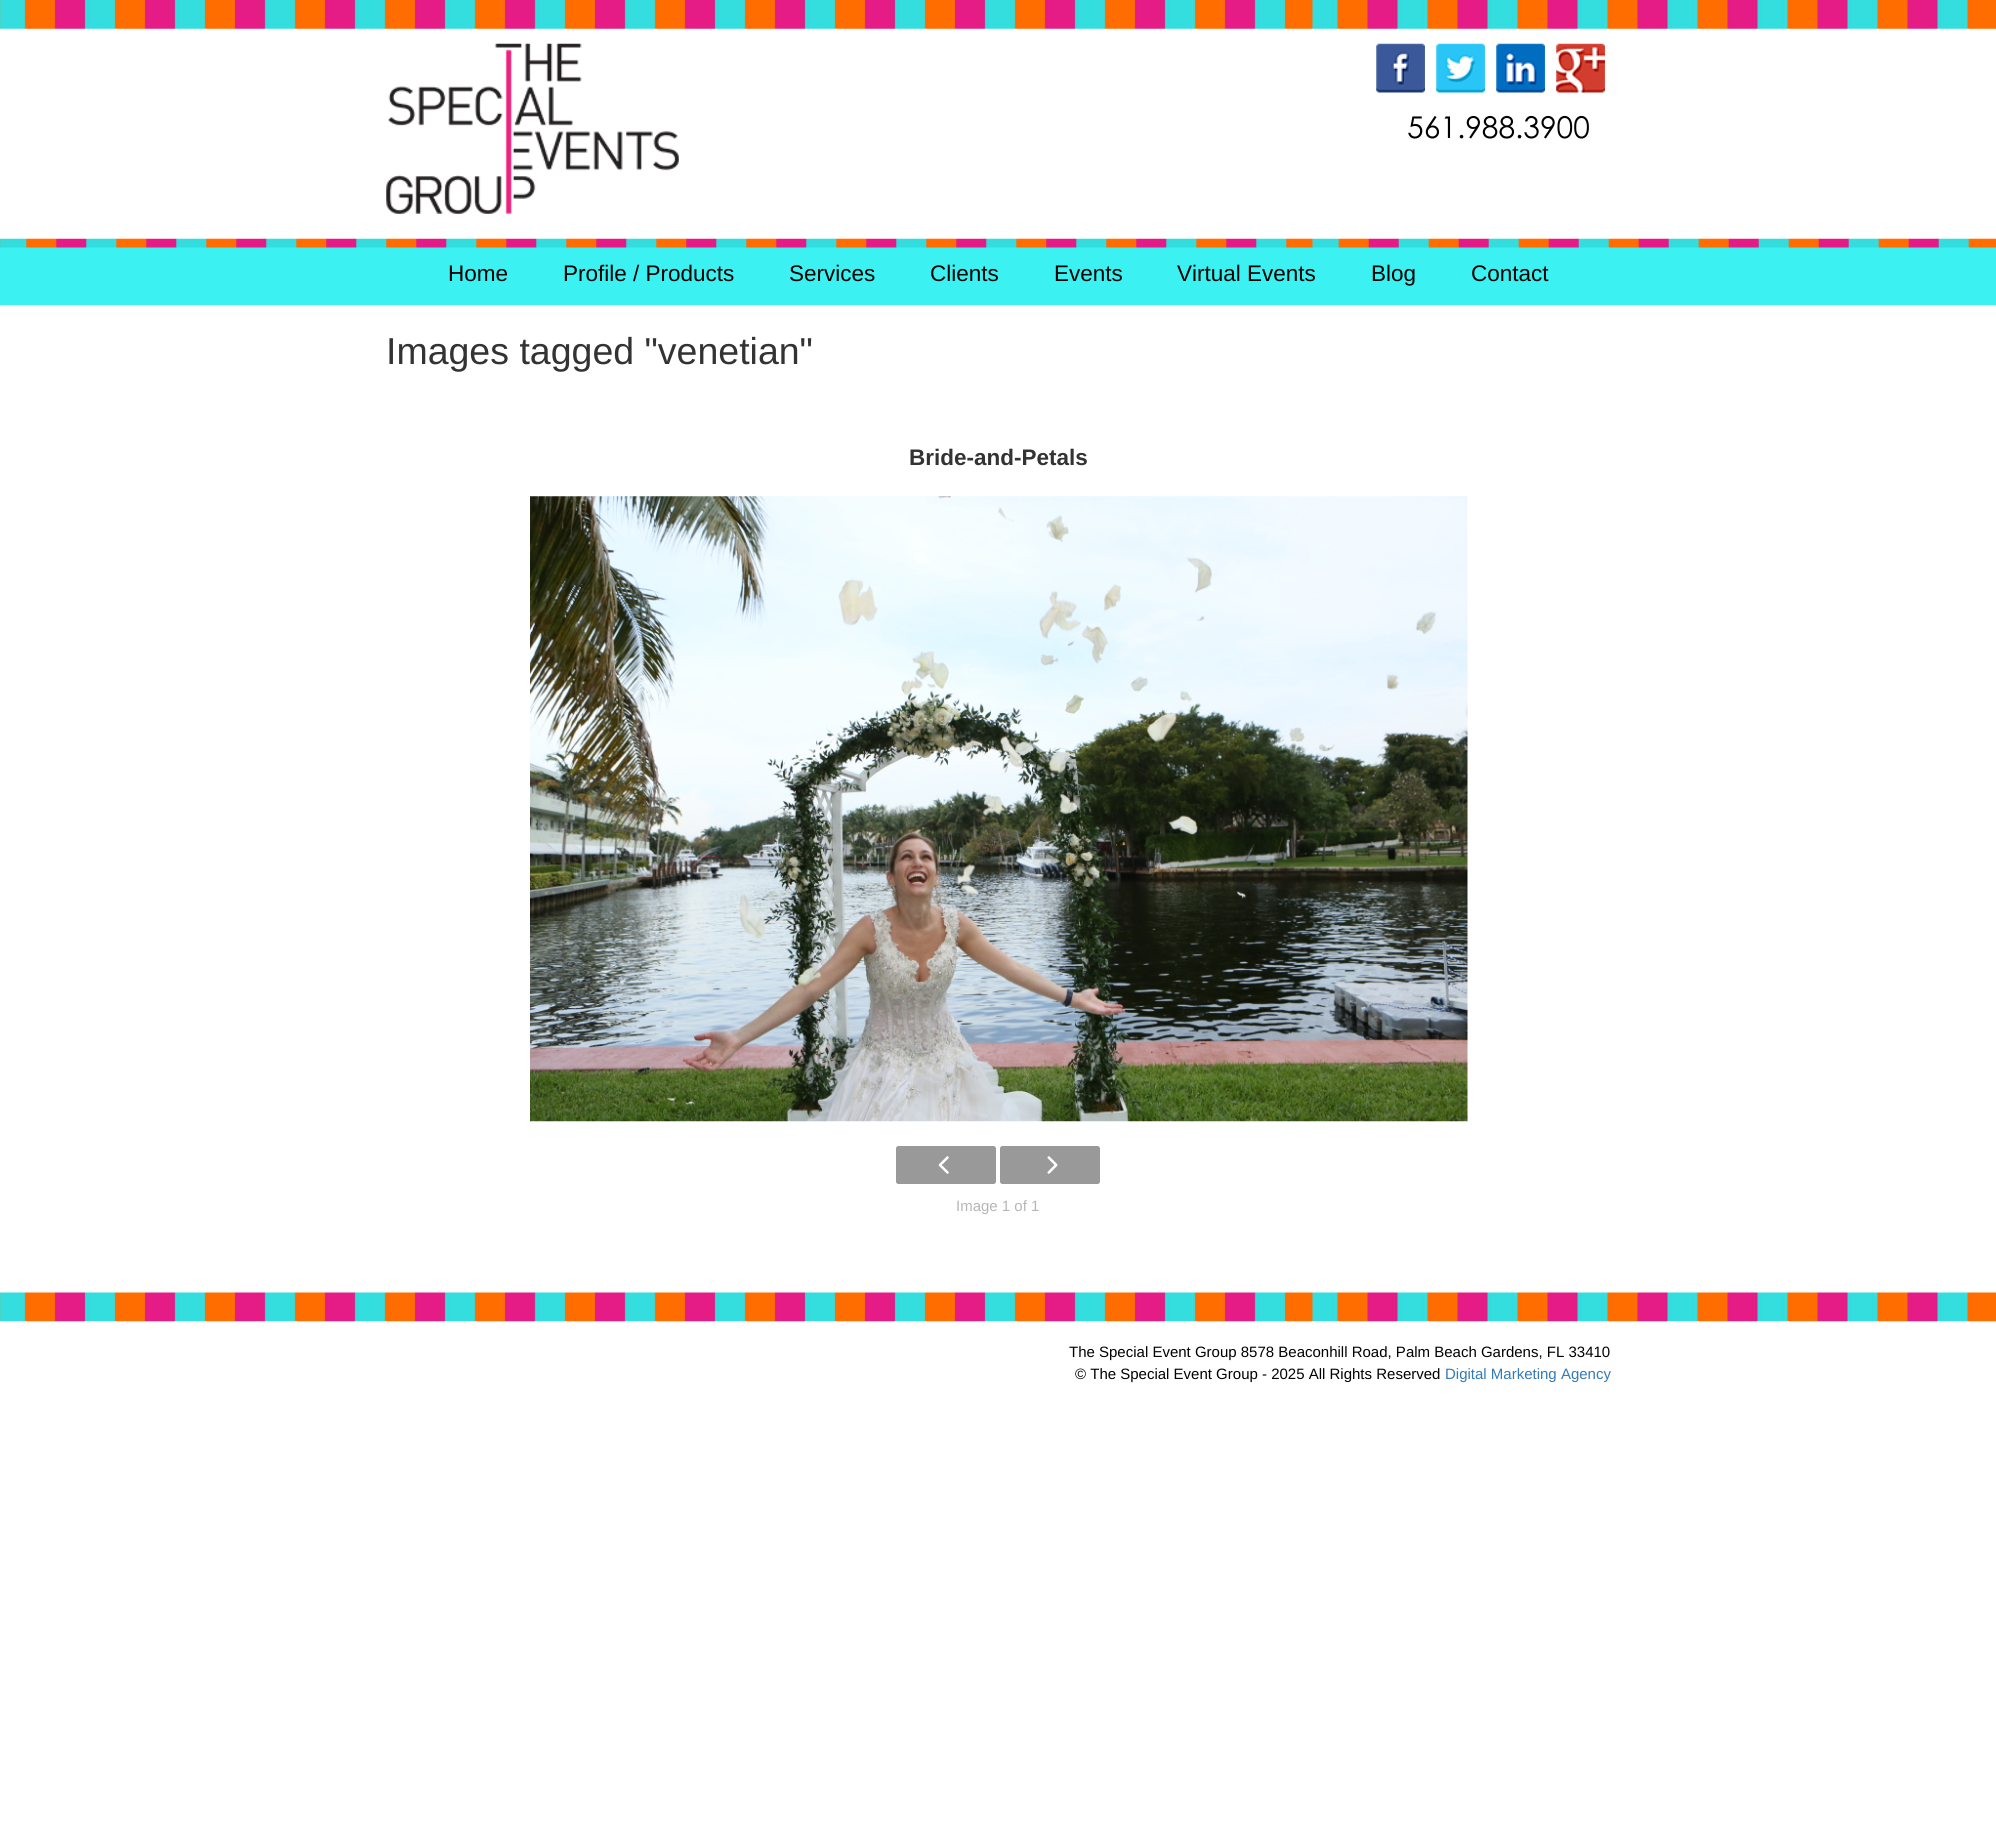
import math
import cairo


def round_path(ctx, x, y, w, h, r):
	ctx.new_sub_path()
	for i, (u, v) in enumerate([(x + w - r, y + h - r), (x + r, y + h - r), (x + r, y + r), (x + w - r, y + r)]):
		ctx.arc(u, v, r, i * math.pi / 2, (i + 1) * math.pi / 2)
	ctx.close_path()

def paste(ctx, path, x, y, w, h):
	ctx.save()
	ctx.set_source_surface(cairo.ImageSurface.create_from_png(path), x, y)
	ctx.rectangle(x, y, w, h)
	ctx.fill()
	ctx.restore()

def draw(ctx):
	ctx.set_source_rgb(1, 1, 1)
	ctx.paint()
	paste(ctx, 'media/1.png', 0, 0, 1996, 29)
	paste(ctx, 'media/2.png', 386, 43, 293, 171)
	paste(ctx, 'media/3.png', 1376, 43, 49, 50)
	paste(ctx, 'media/4.png', 1436, 43, 49, 50)
	paste(ctx, 'media/5.png', 1496, 43, 49, 50)
	paste(ctx, 'media/6.png', 1556, 43, 49, 50)
	ctx.select_font_face('Century Gothic')
	ctx.set_font_size(30)
	ctx.set_source_rgb(0, 0.004, 0.004)
	ctx.move_to(1407, 138)
	ctx.show_text('561.988.3900')
	ctx.set_source_rgb(0.235, 0.945, 0.945)
	ctx.rectangle(0, 247, 1996, 58)
	ctx.fill()
	paste(ctx, 'media/7.png', 0, 238, 1996, 10)
	ctx.select_font_face('Liberation Sans')
	ctx.set_font_size(22.5)
	ctx.set_source_rgb(0, 0.004, 0.004)
	for x, y, s in [
		(448, 281, 'Home'),
		(563, 281, 'Profile / Products'),
		(789, 281, 'Services'),
		(930, 281, 'Clients'),
		(1054, 281, 'Events'),
		(1177, 281, 'Virtual Events'),
		(1371, 281, 'Blog'),
		(1471, 281, 'Contact'),
	]:
		ctx.move_to(x, y)
		ctx.show_text(s)
	ctx.set_font_size(37.5)
	ctx.set_source_rgb(0.2, 0.2, 0.2)
	ctx.move_to(386, 364)
	ctx.show_text('Images tagged "venetian"')
	ctx.select_font_face('Liberation Sans', cairo.FONT_SLANT_NORMAL, cairo.FONT_WEIGHT_BOLD)
	ctx.set_font_size(22.5)
	ctx.move_to(909, 465)
	ctx.show_text('Bride-and-Petals')
	paste(ctx, 'media/8.png', 530, 496, 938, 626)
	ctx.set_source_rgb(0.6, 0.6, 0.6)
	round_path(ctx, 896, 1146, 100, 38, 2.5)
	ctx.fill()
	paste(ctx, 'media/9.png', 938, 1156, 11, 18)
	round_path(ctx, 1000, 1146, 100, 38, 2.5)
	ctx.fill()
	paste(ctx, 'media/10.png', 1047, 1156, 11, 18)
	ctx.select_font_face('Liberation Sans')
	ctx.set_font_size(15)
	ctx.set_source_rgb(0.714, 0.714, 0.714)
	ctx.move_to(956, 1211)
	ctx.show_text('Image 1 of 1')
	paste(ctx, 'media/11.png', 0, 1292, 1996, 30)
	ctx.set_source_rgb(0, 0.004, 0.004)
	ctx.move_to(1069, 1357)
	ctx.show_text('The Special Event Group 8578 Beaconhill Road, Palm Beach Gardens, FL 33410')
	ctx.move_to(1075, 1379)
	ctx.show_text('© The Special Event Group - 2025 All Rights Reserved')
	ctx.set_source_rgb(0.2, 0.478, 0.718)
	ctx.move_to(1445, 1379)
	ctx.show_text('Digital Marketing Agency')


surface = cairo.ImageSurface(cairo.FORMAT_RGB24, 1996, 1822)
ctx = cairo.Context(surface)
options = cairo.FontOptions()
options.set_hint_metrics(cairo.HINT_METRICS_OFF)
options.set_hint_style(cairo.HINT_STYLE_NONE)
ctx.set_font_options(options)
ctx.set_miter_limit(4)
draw(ctx)
surface.write_to_png('image.png')
